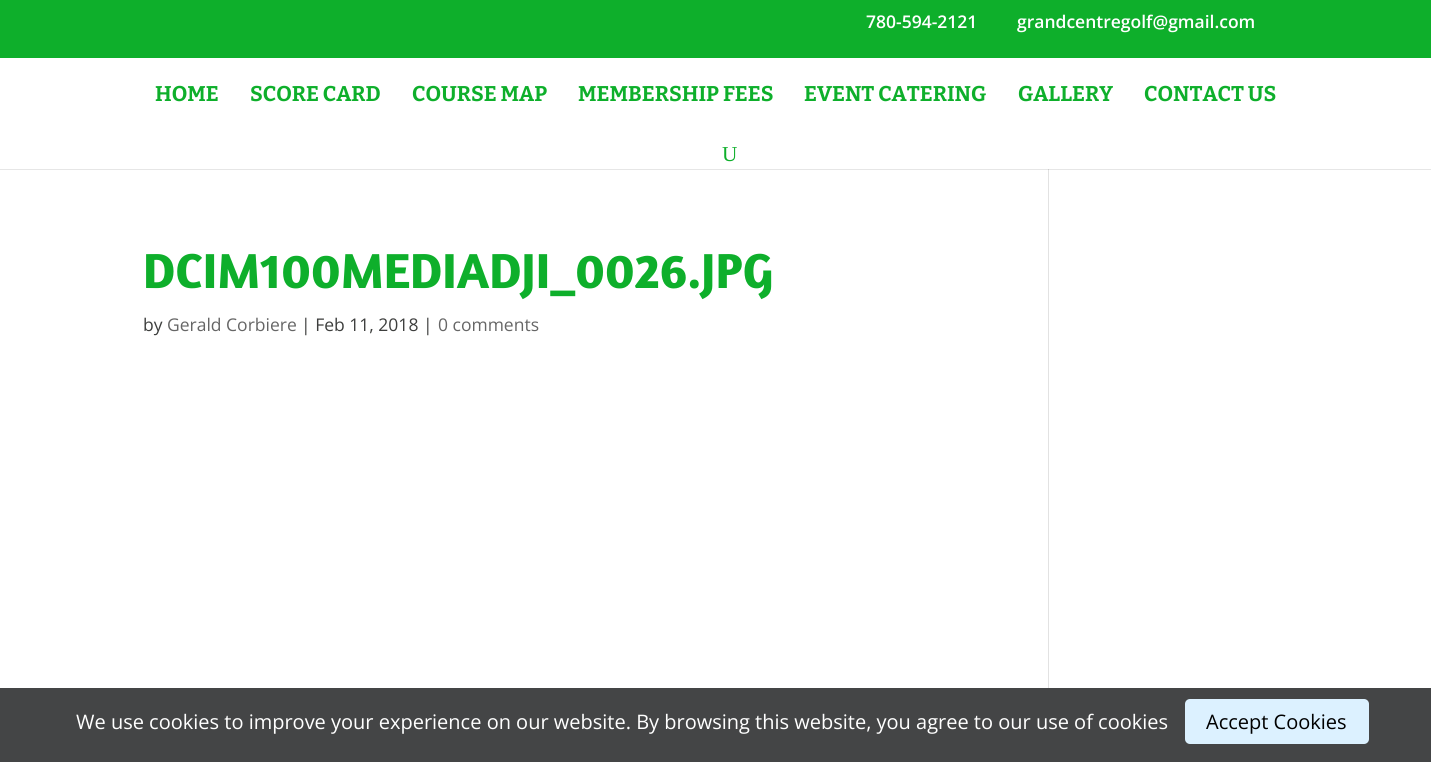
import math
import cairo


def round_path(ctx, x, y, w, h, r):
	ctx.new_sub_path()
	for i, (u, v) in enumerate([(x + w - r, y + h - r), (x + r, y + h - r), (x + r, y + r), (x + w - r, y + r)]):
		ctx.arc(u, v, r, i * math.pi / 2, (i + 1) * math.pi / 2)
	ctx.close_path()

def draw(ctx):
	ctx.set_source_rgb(1, 1, 1)
	ctx.paint()
	ctx.set_source_rgb(0.055, 0.686, 0.169)
	ctx.rectangle(0, 0, 1431, 58)
	ctx.fill()
	ctx.select_font_face('Open Sans SemiBold')
	ctx.set_font_size(17.5)
	ctx.set_source_rgb(1, 1, 1)
	ctx.move_to(866, 28)
	ctx.show_text('780-594-2121')
	ctx.move_to(1017, 28)
	ctx.show_text('grandcentregolf@gmail.com')
	ctx.select_font_face('Bitter', cairo.FONT_SLANT_NORMAL, cairo.FONT_WEIGHT_BOLD)
	ctx.set_font_size(21.25)
	ctx.set_source_rgb(0.055, 0.686, 0.169)
	for x, y, s in [
		(155, 101, 'HOME'),
		(250, 101, 'SCORE CARD'),
		(412, 101, 'COURSE MAP'),
		(578, 101, 'MEMBERSHIP FEES'),
		(804, 101, 'EVENT CATERING'),
		(1018, 101, 'GALLERY'),
		(1144, 101, 'CONTACT US'),
	]:
		ctx.move_to(x, y)
		ctx.show_text(s)
	ctx.select_font_face('Liberation Serif')
	ctx.move_to(722, 161)
	ctx.show_text('U')
	ctx.set_source_rgb(0.902, 0.902, 0.902)
	ctx.rectangle(0, 169, 1431, 1)
	ctx.fill()
	ctx.select_font_face('Amaranth', cairo.FONT_SLANT_NORMAL, cairo.FONT_WEIGHT_BOLD)
	ctx.set_font_size(50)
	ctx.set_source_rgb(0.055, 0.686, 0.169)
	ctx.move_to(143, 288)
	ctx.show_text('DCIM100MEDIADJI_0026.JPG')
	ctx.select_font_face('Open Sans')
	ctx.set_font_size(17.5)
	ctx.set_source_rgb(0.239, 0.243, 0.239)
	ctx.move_to(143, 331)
	ctx.show_text('by')
	ctx.set_source_rgb(0.4, 0.4, 0.4)
	ctx.move_to(167, 331)
	ctx.show_text('Gerald Corbiere')
	ctx.set_source_rgb(0.239, 0.243, 0.239)
	ctx.move_to(301, 331)
	ctx.show_text('| Feb 11, 2018 |')
	ctx.set_source_rgb(0.4, 0.4, 0.4)
	ctx.move_to(438, 331)
	ctx.show_text('0 comments')
	ctx.set_source_rgb(0.886, 0.886, 0.886)
	ctx.rectangle(1048, 169, 1, 519)
	ctx.fill()
	ctx.set_source_rgb(0.796, 0.796, 0.796)
	ctx.rectangle(1048, 169, 1, 1)
	ctx.fill()
	ctx.set_source_rgb(0.267, 0.271, 0.275)
	ctx.rectangle(0, 688, 1431, 74)
	ctx.fill()
	ctx.set_font_size(20)
	ctx.set_source_rgb(1, 1, 1)
	ctx.move_to(76, 729)
	ctx.show_text('We use cookies to improve your experience on our website. By browsing this website, you agree to our use of cookies')
	ctx.set_source_rgb(0.863, 0.945, 1)
	round_path(ctx, 1185, 699, 184, 45, 5)
	ctx.fill()
	ctx.set_source_rgb(0, 0, 0)
	ctx.move_to(1206, 729)
	ctx.show_text('Accept Cookies')


surface = cairo.ImageSurface(cairo.FORMAT_RGB24, 1431, 762)
ctx = cairo.Context(surface)
options = cairo.FontOptions()
options.set_hint_metrics(cairo.HINT_METRICS_OFF)
options.set_hint_style(cairo.HINT_STYLE_NONE)
ctx.set_font_options(options)
ctx.set_miter_limit(4)
draw(ctx)
surface.write_to_png('image.png')
